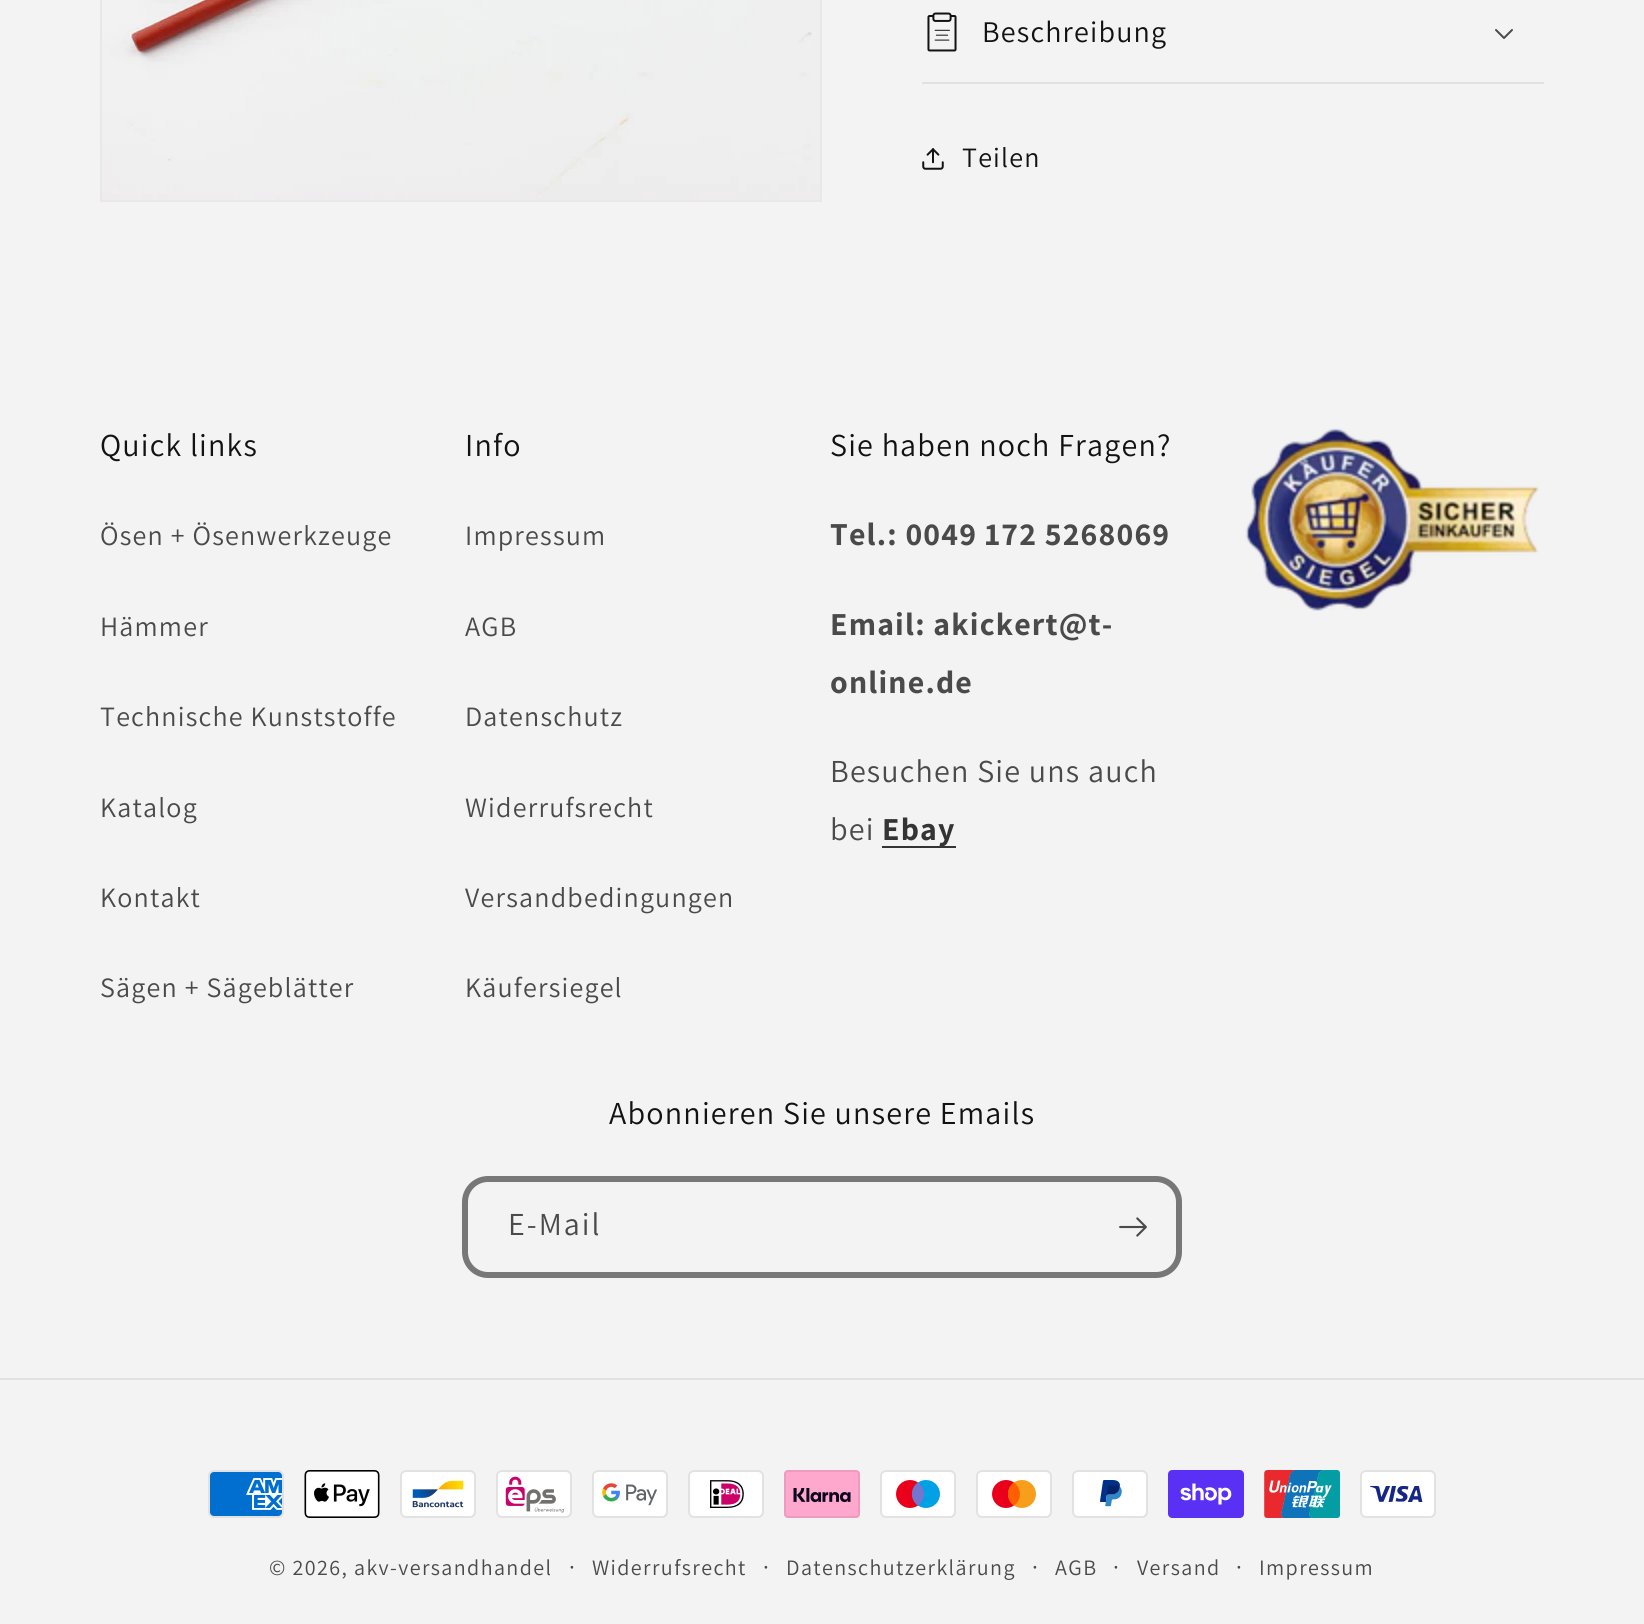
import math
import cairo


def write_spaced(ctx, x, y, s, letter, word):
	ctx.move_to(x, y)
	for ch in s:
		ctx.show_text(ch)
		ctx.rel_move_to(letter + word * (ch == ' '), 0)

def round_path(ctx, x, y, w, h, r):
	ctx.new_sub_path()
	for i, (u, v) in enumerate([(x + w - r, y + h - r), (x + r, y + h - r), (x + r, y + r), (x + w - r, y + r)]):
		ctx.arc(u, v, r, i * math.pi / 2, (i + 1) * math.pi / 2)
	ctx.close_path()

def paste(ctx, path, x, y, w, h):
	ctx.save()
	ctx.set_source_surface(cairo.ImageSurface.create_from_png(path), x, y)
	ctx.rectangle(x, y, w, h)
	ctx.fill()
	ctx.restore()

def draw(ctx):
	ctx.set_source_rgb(0.953, 0.953, 0.953)
	ctx.paint()
	ctx.rectangle(101, -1, 720, 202)
	ctx.set_source_rgb(0.91, 0.91, 0.91)
	ctx.stroke()
	paste(ctx, 'media/1.png', 102, 0, 718, 200)
	ctx.set_source_rgb(0.882, 0.882, 0.882)
	ctx.rectangle(922, 82, 622, 2)
	ctx.fill()
	paste(ctx, 'media/2.png', 927, 12, 30, 40)
	ctx.select_font_face('Assistant')
	ctx.set_font_size(30)
	ctx.set_source_rgb(0.071, 0.071, 0.071)
	write_spaced(ctx, 982, 42, 'Beschreibung', 1.2, 0)
	paste(ctx, 'media/3.png', 1495, 29, 18, 10)
	paste(ctx, 'media/4.png', 922, 148, 22, 22)
	ctx.set_font_size(28)
	write_spaced(ctx, 962, 167, 'Teilen', 1.2, 0)
	ctx.set_font_size(32)
	write_spaced(ctx, 100, 456, 'Quick links', 1.2, 0)
	ctx.set_font_size(28)
	ctx.set_source_rgb(0.29, 0.29, 0.29)
	for x, y, s in [
		(100, 545, 'Ösen + Ösenwerkzeuge'),
		(100, 636, 'Hämmer'),
		(100, 726, 'Technische Kunststoffe'),
		(100, 817, 'Katalog'),
		(100, 907, 'Kontakt'),
		(100, 997, 'Sägen + Sägeblätter'),
	]:
		write_spaced(ctx, x, y, s, 1.2, 0)
	ctx.set_font_size(32)
	ctx.set_source_rgb(0.071, 0.071, 0.071)
	write_spaced(ctx, 465, 456, 'Info', 1.2, 0)
	ctx.set_font_size(28)
	ctx.set_source_rgb(0.29, 0.29, 0.29)
	for x, y, s in [
		(465, 545, 'Impressum'),
		(465, 636, 'AGB'),
		(465, 726, 'Datenschutz'),
		(465, 817, 'Widerrufsrecht'),
		(465, 907, 'Versandbedingungen'),
		(465, 997, 'Käufersiegel'),
	]:
		write_spaced(ctx, x, y, s, 1.2, 0)
	ctx.set_font_size(32)
	ctx.set_source_rgb(0.071, 0.071, 0.071)
	write_spaced(ctx, 830, 456, 'Sie haben noch Fragen?', 1.2, 0)
	ctx.select_font_face('Assistant', cairo.FONT_SLANT_NORMAL, cairo.FONT_WEIGHT_BOLD)
	ctx.set_source_rgb(0.29, 0.29, 0.29)
	for x, y, s in [
		(830, 545, 'Tel.: 0049 172 5268069'),
		(830, 635, 'Email: akickert@t-'),
		(830, 693, 'online.de'),
	]:
		write_spaced(ctx, x, y, s, 1.2, 0)
	ctx.select_font_face('Assistant')
	write_spaced(ctx, 830, 782, 'Besuchen Sie uns auch', 1.2, 0)
	write_spaced(ctx, 830, 840, 'bei', 1.2, 0)
	ctx.set_source_rgb(0.204, 0.204, 0.204)
	ctx.rectangle(882, 846, 74, 2)
	ctx.fill()
	ctx.select_font_face('Assistant', cairo.FONT_SLANT_NORMAL, cairo.FONT_WEIGHT_BOLD)
	write_spaced(ctx, 882, 840, 'Ebay', 1.2, 0)
	paste(ctx, 'media/5.png', 1245, 428, 294, 183)
	ctx.select_font_face('Assistant')
	ctx.set_source_rgb(0.071, 0.071, 0.071)
	write_spaced(ctx, 609, 1124, 'Abonnieren Sie unsere Emails', 1.2, 0)
	round_path(ctx, 465, 1179, 714, 96, 23)
	ctx.set_source_rgb(0.467, 0.467, 0.467)
	ctx.set_line_width(6)
	ctx.stroke()
	ctx.set_source_rgb(0.29, 0.29, 0.29)
	write_spaced(ctx, 508, 1235, 'E-Mail', 2, 0)
	paste(ctx, 'media/6.png', 1119, 1217, 28, 20)
	ctx.set_source_rgb(0.882, 0.882, 0.882)
	ctx.rectangle(0, 1378, 1644, 2)
	ctx.fill()
	paste(ctx, 'media/7.png', 208, 1470, 76, 48)
	paste(ctx, 'media/8.png', 304, 1470, 76, 48)
	paste(ctx, 'media/9.png', 400, 1470, 76, 48)
	paste(ctx, 'media/10.png', 496, 1470, 76, 48)
	paste(ctx, 'media/11.png', 592, 1470, 76, 48)
	paste(ctx, 'media/12.png', 688, 1470, 76, 48)
	paste(ctx, 'media/13.png', 784, 1470, 76, 48)
	paste(ctx, 'media/14.png', 880, 1470, 76, 48)
	paste(ctx, 'media/15.png', 976, 1470, 76, 48)
	paste(ctx, 'media/16.png', 1072, 1470, 76, 48)
	paste(ctx, 'media/17.png', 1168, 1470, 76, 48)
	paste(ctx, 'media/18.png', 1264, 1470, 76, 48)
	paste(ctx, 'media/19.png', 1360, 1470, 76, 48)
	ctx.set_font_size(22)
	ctx.set_source_rgb(0.29, 0.29, 0.29)
	write_spaced(ctx, 269, 1575, '© 2026, akv-versandhandel', 1.4, 0)
	ctx.set_font_size(24)
	write_spaced(ctx, 569, 1575, '·', 1.4, 0)
	ctx.set_font_size(22)
	write_spaced(ctx, 592, 1575, 'Widerrufsrecht', 1.4, 0)
	ctx.set_font_size(24)
	write_spaced(ctx, 763, 1575, '·', 1.4, 0)
	ctx.set_font_size(22)
	write_spaced(ctx, 786, 1575, 'Datenschutzerklärung', 1.4, 0)
	ctx.set_font_size(24)
	write_spaced(ctx, 1032, 1575, '·', 1.4, 0)
	ctx.set_font_size(22)
	write_spaced(ctx, 1055, 1575, 'AGB', 1.4, 0)
	ctx.set_font_size(24)
	write_spaced(ctx, 1113, 1575, '·', 1.4, 0)
	ctx.set_font_size(22)
	write_spaced(ctx, 1137, 1575, 'Versand', 1.4, 0)
	ctx.set_font_size(24)
	write_spaced(ctx, 1236, 1575, '·', 1.4, 0)
	ctx.set_font_size(22)
	write_spaced(ctx, 1259, 1575, 'Impressum', 1.4, 0)


surface = cairo.ImageSurface(cairo.FORMAT_RGB24, 1644, 1624)
ctx = cairo.Context(surface)
options = cairo.FontOptions()
options.set_hint_metrics(cairo.HINT_METRICS_OFF)
options.set_hint_style(cairo.HINT_STYLE_NONE)
ctx.set_font_options(options)
ctx.set_miter_limit(4)
draw(ctx)
surface.write_to_png('image.png')
